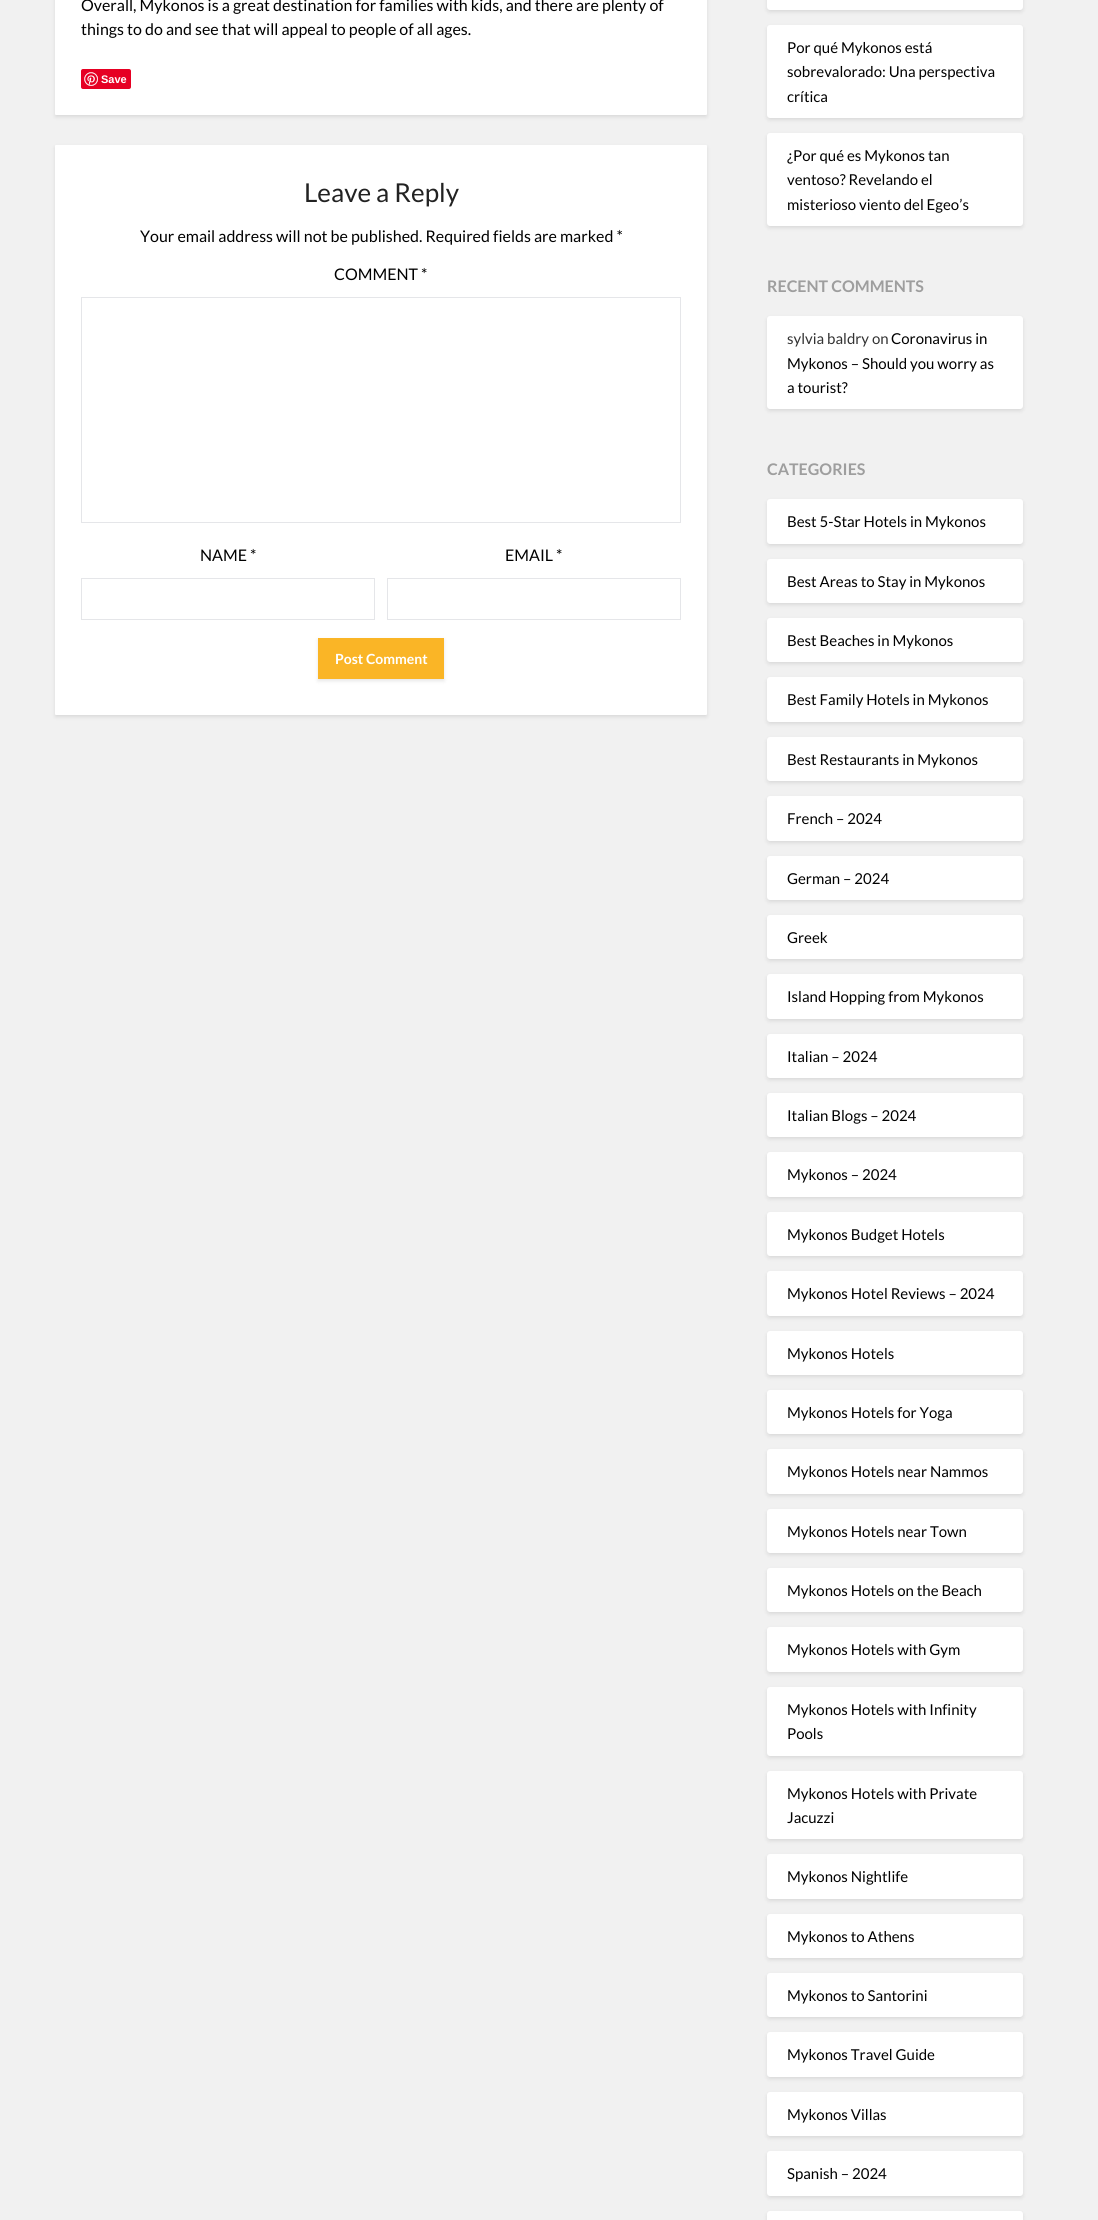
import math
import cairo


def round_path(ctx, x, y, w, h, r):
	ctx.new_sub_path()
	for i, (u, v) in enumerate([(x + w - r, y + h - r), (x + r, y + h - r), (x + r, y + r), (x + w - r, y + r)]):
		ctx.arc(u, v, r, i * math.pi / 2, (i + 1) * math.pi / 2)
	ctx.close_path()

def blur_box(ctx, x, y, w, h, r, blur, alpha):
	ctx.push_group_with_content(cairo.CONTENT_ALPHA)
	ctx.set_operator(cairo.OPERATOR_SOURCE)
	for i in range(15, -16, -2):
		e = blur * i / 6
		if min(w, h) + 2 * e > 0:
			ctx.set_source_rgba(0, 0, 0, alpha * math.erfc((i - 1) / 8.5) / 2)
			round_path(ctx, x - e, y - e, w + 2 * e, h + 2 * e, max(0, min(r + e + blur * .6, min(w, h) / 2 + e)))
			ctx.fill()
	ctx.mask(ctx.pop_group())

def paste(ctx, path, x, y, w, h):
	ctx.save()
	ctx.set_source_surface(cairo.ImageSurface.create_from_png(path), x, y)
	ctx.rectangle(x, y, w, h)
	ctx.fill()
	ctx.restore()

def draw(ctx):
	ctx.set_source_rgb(0.945, 0.945, 0.945)
	ctx.paint()
	ctx.set_source_rgb(0, 0, 0)
	blur_box(ctx, 55, -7, 652, 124, 1, 2, 0.1)
	ctx.set_source_rgb(1, 1, 1)
	round_path(ctx, 55, -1, 652, 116, 1)
	ctx.fill()
	ctx.select_font_face('Lato')
	ctx.set_font_size(16)
	ctx.set_source_rgb(0, 0, 0)
	ctx.move_to(81, 11)
	ctx.show_text('Overall, Mykonos is a great destination for families with kids, and there are plenty of')
	ctx.move_to(81, 35)
	ctx.show_text('things to do and see that will appeal to people of all ages.')
	ctx.set_source_rgb(0.902, 0, 0.137)
	round_path(ctx, 81, 69, 50, 20, 2)
	ctx.fill()
	paste(ctx, 'media/1.png', 84, 72, 14, 14)
	ctx.select_font_face('Liberation Sans', cairo.FONT_SLANT_NORMAL, cairo.FONT_WEIGHT_BOLD)
	ctx.set_font_size(11)
	ctx.set_source_rgb(1, 1, 1)
	ctx.move_to(101, 83)
	ctx.show_text('Save')
	ctx.set_source_rgb(0, 0, 0)
	blur_box(ctx, 55, 147, 652, 570, 1, 2, 0.1)
	ctx.set_source_rgb(1, 1, 1)
	round_path(ctx, 55, 145, 652, 570, 1)
	ctx.fill()
	ctx.select_font_face('Lato')
	ctx.set_font_size(26)
	ctx.set_source_rgb(0.133, 0.133, 0.133)
	ctx.move_to(304, 202)
	ctx.show_text('Leave a Reply')
	ctx.set_font_size(16)
	ctx.set_source_rgb(0, 0, 0)
	ctx.move_to(140, 242)
	ctx.show_text('Your email address will not be published. Required fields are marked *')
	ctx.move_to(334, 280)
	ctx.show_text('COMMENT *')
	ctx.rectangle(81.5, 297.5, 599, 225)
	ctx.set_source_rgb(0.898, 0.902, 0.914)
	ctx.set_line_width(1)
	ctx.stroke()
	ctx.set_source_rgb(0, 0, 0)
	ctx.move_to(200, 561)
	ctx.show_text('NAME *')
	ctx.rectangle(81.5, 578.5, 293, 41)
	ctx.set_source_rgb(0.898, 0.902, 0.914)
	ctx.stroke()
	ctx.set_source_rgb(0, 0, 0)
	ctx.move_to(505, 561)
	ctx.show_text('EMAIL *')
	ctx.rectangle(387.5, 578.5, 293, 41)
	ctx.set_source_rgb(0.898, 0.902, 0.914)
	ctx.stroke()
	ctx.set_source_rgb(0, 0, 0)
	blur_box(ctx, 318, 640, 126, 41, 0, 2, 0.1)
	ctx.set_source_rgb(0.98, 0.71, 0.149)
	ctx.rectangle(318, 638, 126, 41)
	ctx.fill()
	ctx.select_font_face('Lato', cairo.FONT_SLANT_NORMAL, cairo.FONT_WEIGHT_BOLD)
	ctx.set_font_size(14)
	ctx.set_source_rgb(1, 1, 1)
	ctx.move_to(335, 664)
	ctx.show_text('Post Comment')
	ctx.set_source_rgb(0, 0, 0)
	blur_box(ctx, 767, -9, 256, 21, 3, 2, 0.1)
	ctx.set_source_rgb(1, 1, 1)
	round_path(ctx, 767, -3, 256, 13, 3)
	ctx.fill()
	ctx.set_source_rgb(0, 0, 0)
	blur_box(ctx, 767, 27, 256, 93, 3, 2, 0.1)
	ctx.set_source_rgb(1, 1, 1)
	round_path(ctx, 767, 25, 256, 93, 3)
	ctx.fill()
	ctx.select_font_face('Lato')
	ctx.set_font_size(15)
	ctx.set_source_rgb(0, 0, 0)
	for x, y, s in [
		(787, 53, 'Por qué Mykonos está'),
		(787, 77, 'sobrevalorado: Una perspectiva'),
		(787, 102, 'crítica'),
	]:
		ctx.move_to(x, y)
		ctx.show_text(s)
	ctx.set_source_rgb(0, 0, 0)
	blur_box(ctx, 767, 135, 256, 93, 3, 2, 0.1)
	ctx.set_source_rgb(1, 1, 1)
	round_path(ctx, 767, 133, 256, 93, 3)
	ctx.fill()
	ctx.set_source_rgb(0, 0, 0)
	for x, y, s in [
		(787, 161, '¿Por qué es Mykonos tan'),
		(787, 185, 'ventoso? Revelando el'),
		(787, 210, 'misterioso viento del Egeo’s'),
	]:
		ctx.move_to(x, y)
		ctx.show_text(s)
	ctx.select_font_face('Lato', cairo.FONT_SLANT_NORMAL, cairo.FONT_WEIGHT_BOLD)
	ctx.set_font_size(16)
	ctx.set_source_rgb(0.62, 0.62, 0.62)
	ctx.move_to(767, 292)
	ctx.show_text('RECENT COMMENTS')
	ctx.set_source_rgb(0, 0, 0)
	blur_box(ctx, 767, 318, 256, 93, 3, 2, 0.1)
	ctx.set_source_rgb(1, 1, 1)
	round_path(ctx, 767, 316, 256, 93, 3)
	ctx.fill()
	ctx.select_font_face('Lato')
	ctx.set_font_size(15)
	ctx.set_source_rgb(0.2, 0.2, 0.2)
	ctx.move_to(787, 344)
	ctx.show_text('sylvia baldry on')
	ctx.set_source_rgb(0, 0, 0)
	for x, y, s in [
		(891, 344, 'Coronavirus in'),
		(787, 369, 'Mykonos – Should you worry as'),
		(787, 393, 'a tourist?'),
	]:
		ctx.move_to(x, y)
		ctx.show_text(s)
	ctx.select_font_face('Lato', cairo.FONT_SLANT_NORMAL, cairo.FONT_WEIGHT_BOLD)
	ctx.set_font_size(16)
	ctx.set_source_rgb(0.62, 0.62, 0.62)
	ctx.move_to(767, 475)
	ctx.show_text('CATEGORIES')
	ctx.set_source_rgb(0, 0, 0)
	blur_box(ctx, 767, 501, 256, 45, 3, 2, 0.1)
	ctx.set_source_rgb(1, 1, 1)
	round_path(ctx, 767, 499, 256, 45, 3)
	ctx.fill()
	ctx.select_font_face('Lato')
	ctx.set_font_size(15)
	ctx.set_source_rgb(0, 0, 0)
	ctx.move_to(787, 527)
	ctx.show_text('Best 5-Star Hotels in Mykonos')
	ctx.set_source_rgb(0, 0, 0)
	blur_box(ctx, 767, 561, 256, 44, 3, 2, 0.1)
	ctx.set_source_rgb(1, 1, 1)
	round_path(ctx, 767, 559, 256, 44, 3)
	ctx.fill()
	ctx.set_source_rgb(0, 0, 0)
	ctx.move_to(787, 587)
	ctx.show_text('Best Areas to Stay in Mykonos')
	ctx.set_source_rgb(0, 0, 0)
	blur_box(ctx, 767, 620, 256, 44, 3, 2, 0.1)
	ctx.set_source_rgb(1, 1, 1)
	round_path(ctx, 767, 618, 256, 44, 3)
	ctx.fill()
	ctx.set_source_rgb(0, 0, 0)
	ctx.move_to(787, 646)
	ctx.show_text('Best Beaches in Mykonos')
	ctx.set_source_rgb(0, 0, 0)
	blur_box(ctx, 767, 679, 256, 45, 3, 2, 0.1)
	ctx.set_source_rgb(1, 1, 1)
	round_path(ctx, 767, 677, 256, 45, 3)
	ctx.fill()
	ctx.set_source_rgb(0, 0, 0)
	ctx.move_to(787, 705)
	ctx.show_text('Best Family Hotels in Mykonos')
	ctx.set_source_rgb(0, 0, 0)
	blur_box(ctx, 767, 739, 256, 44, 3, 2, 0.1)
	ctx.set_source_rgb(1, 1, 1)
	round_path(ctx, 767, 737, 256, 44, 3)
	ctx.fill()
	ctx.set_source_rgb(0, 0, 0)
	ctx.move_to(787, 765)
	ctx.show_text('Best Restaurants in Mykonos')
	ctx.set_source_rgb(0, 0, 0)
	blur_box(ctx, 767, 798, 256, 45, 3, 2, 0.1)
	ctx.set_source_rgb(1, 1, 1)
	round_path(ctx, 767, 796, 256, 45, 3)
	ctx.fill()
	ctx.set_source_rgb(0, 0, 0)
	ctx.move_to(787, 824)
	ctx.show_text('French – 2024')
	ctx.set_source_rgb(0, 0, 0)
	blur_box(ctx, 767, 858, 256, 44, 3, 2, 0.1)
	ctx.set_source_rgb(1, 1, 1)
	round_path(ctx, 767, 856, 256, 44, 3)
	ctx.fill()
	ctx.set_source_rgb(0, 0, 0)
	ctx.move_to(787, 884)
	ctx.show_text('German – 2024')
	ctx.set_source_rgb(0, 0, 0)
	blur_box(ctx, 767, 917, 256, 44, 3, 2, 0.1)
	ctx.set_source_rgb(1, 1, 1)
	round_path(ctx, 767, 915, 256, 44, 3)
	ctx.fill()
	ctx.set_source_rgb(0, 0, 0)
	ctx.move_to(787, 943)
	ctx.show_text('Greek')
	ctx.set_source_rgb(0, 0, 0)
	blur_box(ctx, 767, 976, 256, 45, 3, 2, 0.1)
	ctx.set_source_rgb(1, 1, 1)
	round_path(ctx, 767, 974, 256, 45, 3)
	ctx.fill()
	ctx.set_source_rgb(0, 0, 0)
	ctx.move_to(787, 1002)
	ctx.show_text('Island Hopping from Mykonos')
	ctx.set_source_rgb(0, 0, 0)
	blur_box(ctx, 767, 1036, 256, 44, 3, 2, 0.1)
	ctx.set_source_rgb(1, 1, 1)
	round_path(ctx, 767, 1034, 256, 44, 3)
	ctx.fill()
	ctx.set_source_rgb(0, 0, 0)
	ctx.move_to(787, 1062)
	ctx.show_text('Italian – 2024')
	ctx.set_source_rgb(0, 0, 0)
	blur_box(ctx, 767, 1095, 256, 44, 3, 2, 0.1)
	ctx.set_source_rgb(1, 1, 1)
	round_path(ctx, 767, 1093, 256, 44, 3)
	ctx.fill()
	ctx.set_source_rgb(0, 0, 0)
	ctx.move_to(787, 1121)
	ctx.show_text('Italian Blogs – 2024')
	ctx.set_source_rgb(0, 0, 0)
	blur_box(ctx, 767, 1154, 256, 45, 3, 2, 0.1)
	ctx.set_source_rgb(1, 1, 1)
	round_path(ctx, 767, 1152, 256, 45, 3)
	ctx.fill()
	ctx.set_source_rgb(0, 0, 0)
	ctx.move_to(787, 1180)
	ctx.show_text('Mykonos – 2024')
	ctx.set_source_rgb(0, 0, 0)
	blur_box(ctx, 767, 1214, 256, 44, 3, 2, 0.1)
	ctx.set_source_rgb(1, 1, 1)
	round_path(ctx, 767, 1212, 256, 44, 3)
	ctx.fill()
	ctx.set_source_rgb(0, 0, 0)
	ctx.move_to(787, 1240)
	ctx.show_text('Mykonos Budget Hotels')
	ctx.set_source_rgb(0, 0, 0)
	blur_box(ctx, 767, 1273, 256, 45, 3, 2, 0.1)
	ctx.set_source_rgb(1, 1, 1)
	round_path(ctx, 767, 1271, 256, 45, 3)
	ctx.fill()
	ctx.set_source_rgb(0, 0, 0)
	ctx.move_to(787, 1299)
	ctx.show_text('Mykonos Hotel Reviews – 2024')
	ctx.set_source_rgb(0, 0, 0)
	blur_box(ctx, 767, 1333, 256, 44, 3, 2, 0.1)
	ctx.set_source_rgb(1, 1, 1)
	round_path(ctx, 767, 1331, 256, 44, 3)
	ctx.fill()
	ctx.set_source_rgb(0, 0, 0)
	ctx.move_to(787, 1359)
	ctx.show_text('Mykonos Hotels')
	ctx.set_source_rgb(0, 0, 0)
	blur_box(ctx, 767, 1392, 256, 44, 3, 2, 0.1)
	ctx.set_source_rgb(1, 1, 1)
	round_path(ctx, 767, 1390, 256, 44, 3)
	ctx.fill()
	ctx.set_source_rgb(0, 0, 0)
	ctx.move_to(787, 1418)
	ctx.show_text('Mykonos Hotels for Yoga')
	ctx.set_source_rgb(0, 0, 0)
	blur_box(ctx, 767, 1451, 256, 45, 3, 2, 0.1)
	ctx.set_source_rgb(1, 1, 1)
	round_path(ctx, 767, 1449, 256, 45, 3)
	ctx.fill()
	ctx.set_source_rgb(0, 0, 0)
	ctx.move_to(787, 1477)
	ctx.show_text('Mykonos Hotels near Nammos')
	ctx.set_source_rgb(0, 0, 0)
	blur_box(ctx, 767, 1511, 256, 44, 3, 2, 0.1)
	ctx.set_source_rgb(1, 1, 1)
	round_path(ctx, 767, 1509, 256, 44, 3)
	ctx.fill()
	ctx.set_source_rgb(0, 0, 0)
	ctx.move_to(787, 1537)
	ctx.show_text('Mykonos Hotels near Town')
	ctx.set_source_rgb(0, 0, 0)
	blur_box(ctx, 767, 1570, 256, 44, 3, 2, 0.1)
	ctx.set_source_rgb(1, 1, 1)
	round_path(ctx, 767, 1568, 256, 44, 3)
	ctx.fill()
	ctx.set_source_rgb(0, 0, 0)
	ctx.move_to(787, 1596)
	ctx.show_text('Mykonos Hotels on the Beach')
	ctx.set_source_rgb(0, 0, 0)
	blur_box(ctx, 767, 1629, 256, 45, 3, 2, 0.1)
	ctx.set_source_rgb(1, 1, 1)
	round_path(ctx, 767, 1627, 256, 45, 3)
	ctx.fill()
	ctx.set_source_rgb(0, 0, 0)
	ctx.move_to(787, 1655)
	ctx.show_text('Mykonos Hotels with Gym')
	ctx.set_source_rgb(0, 0, 0)
	blur_box(ctx, 767, 1689, 256, 69, 3, 2, 0.1)
	ctx.set_source_rgb(1, 1, 1)
	round_path(ctx, 767, 1687, 256, 69, 3)
	ctx.fill()
	ctx.set_source_rgb(0, 0, 0)
	ctx.move_to(787, 1715)
	ctx.show_text('Mykonos Hotels with Infinity')
	ctx.move_to(787, 1739)
	ctx.show_text('Pools')
	ctx.set_source_rgb(0, 0, 0)
	blur_box(ctx, 767, 1773, 256, 68, 3, 2, 0.1)
	ctx.set_source_rgb(1, 1, 1)
	round_path(ctx, 767, 1771, 256, 68, 3)
	ctx.fill()
	ctx.set_source_rgb(0, 0, 0)
	ctx.move_to(787, 1799)
	ctx.show_text('Mykonos Hotels with Private')
	ctx.move_to(787, 1823)
	ctx.show_text('Jacuzzi')
	ctx.set_source_rgb(0, 0, 0)
	blur_box(ctx, 767, 1856, 256, 45, 3, 2, 0.1)
	ctx.set_source_rgb(1, 1, 1)
	round_path(ctx, 767, 1854, 256, 45, 3)
	ctx.fill()
	ctx.set_source_rgb(0, 0, 0)
	ctx.move_to(787, 1882)
	ctx.show_text('Mykonos Nightlife')
	ctx.set_source_rgb(0, 0, 0)
	blur_box(ctx, 767, 1916, 256, 44, 3, 2, 0.1)
	ctx.set_source_rgb(1, 1, 1)
	round_path(ctx, 767, 1914, 256, 44, 3)
	ctx.fill()
	ctx.set_source_rgb(0, 0, 0)
	ctx.move_to(787, 1942)
	ctx.show_text('Mykonos to Athens')
	ctx.set_source_rgb(0, 0, 0)
	blur_box(ctx, 767, 1975, 256, 44, 3, 2, 0.1)
	ctx.set_source_rgb(1, 1, 1)
	round_path(ctx, 767, 1973, 256, 44, 3)
	ctx.fill()
	ctx.set_source_rgb(0, 0, 0)
	ctx.move_to(787, 2001)
	ctx.show_text('Mykonos to Santorini')
	ctx.set_source_rgb(0, 0, 0)
	blur_box(ctx, 767, 2034, 256, 45, 3, 2, 0.1)
	ctx.set_source_rgb(1, 1, 1)
	round_path(ctx, 767, 2032, 256, 45, 3)
	ctx.fill()
	ctx.set_source_rgb(0, 0, 0)
	ctx.move_to(787, 2060)
	ctx.show_text('Mykonos Travel Guide')
	ctx.set_source_rgb(0, 0, 0)
	blur_box(ctx, 767, 2094, 256, 44, 3, 2, 0.1)
	ctx.set_source_rgb(1, 1, 1)
	round_path(ctx, 767, 2092, 256, 44, 3)
	ctx.fill()
	ctx.set_source_rgb(0, 0, 0)
	ctx.move_to(787, 2120)
	ctx.show_text('Mykonos Villas')
	ctx.set_source_rgb(0, 0, 0)
	blur_box(ctx, 767, 2153, 256, 45, 3, 2, 0.1)
	ctx.set_source_rgb(1, 1, 1)
	round_path(ctx, 767, 2151, 256, 45, 3)
	ctx.fill()
	ctx.set_source_rgb(0, 0, 0)
	ctx.move_to(787, 2179)
	ctx.show_text('Spanish – 2024')
	ctx.set_source_rgb(0, 0, 0)
	blur_box(ctx, 767, 2213, 256, 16, 3, 2, 0.1)
	ctx.set_source_rgb(1, 1, 1)
	round_path(ctx, 767, 2211, 256, 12, 3)
	ctx.fill()


surface = cairo.ImageSurface(cairo.FORMAT_RGB24, 1098, 2220)
ctx = cairo.Context(surface)
options = cairo.FontOptions()
options.set_hint_metrics(cairo.HINT_METRICS_OFF)
options.set_hint_style(cairo.HINT_STYLE_NONE)
ctx.set_font_options(options)
ctx.set_miter_limit(4)
draw(ctx)
surface.write_to_png('image.png')
